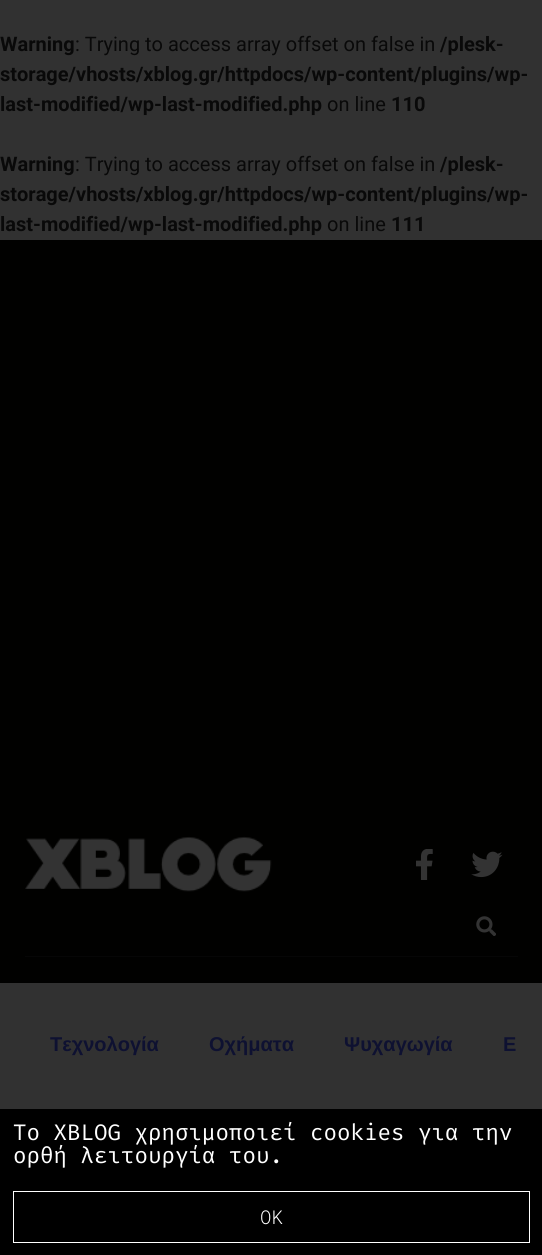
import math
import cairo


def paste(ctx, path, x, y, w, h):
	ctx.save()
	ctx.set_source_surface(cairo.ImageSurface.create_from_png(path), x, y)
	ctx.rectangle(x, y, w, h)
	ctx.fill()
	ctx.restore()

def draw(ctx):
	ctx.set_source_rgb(0.192, 0.192, 0.192)
	ctx.paint()
	ctx.select_font_face('Roboto', cairo.FONT_SLANT_NORMAL, cairo.FONT_WEIGHT_BOLD)
	ctx.set_font_size(20)
	ctx.set_source_rgb(0.039, 0.039, 0.039)
	ctx.move_to(0, 51)
	ctx.show_text('Warning')
	ctx.select_font_face('Roboto')
	ctx.move_to(75, 51)
	ctx.show_text(': Trying to access array offset on false in')
	ctx.select_font_face('Roboto', cairo.FONT_SLANT_NORMAL, cairo.FONT_WEIGHT_BOLD)
	for x, y, s in [
		(440, 51, '/plesk-'),
		(0, 81, 'storage/vhosts/xblog.gr/httpdocs/wp-content/plugins/wp-'),
		(0, 111, 'last-modified/wp-last-modified.php'),
	]:
		ctx.move_to(x, y)
		ctx.show_text(s)
	ctx.select_font_face('Roboto')
	ctx.move_to(327, 111)
	ctx.show_text('on line')
	ctx.select_font_face('Roboto', cairo.FONT_SLANT_NORMAL, cairo.FONT_WEIGHT_BOLD)
	ctx.move_to(391, 111)
	ctx.show_text('110')
	ctx.move_to(0, 171)
	ctx.show_text('Warning')
	ctx.select_font_face('Roboto')
	ctx.move_to(75, 171)
	ctx.show_text(': Trying to access array offset on false in')
	ctx.select_font_face('Roboto', cairo.FONT_SLANT_NORMAL, cairo.FONT_WEIGHT_BOLD)
	for x, y, s in [
		(440, 171, '/plesk-'),
		(0, 201, 'storage/vhosts/xblog.gr/httpdocs/wp-content/plugins/wp-'),
		(0, 231, 'last-modified/wp-last-modified.php'),
	]:
		ctx.move_to(x, y)
		ctx.show_text(s)
	ctx.select_font_face('Roboto')
	ctx.move_to(327, 231)
	ctx.show_text('on line')
	ctx.select_font_face('Roboto', cairo.FONT_SLANT_NORMAL, cairo.FONT_WEIGHT_BOLD)
	ctx.move_to(391, 231)
	ctx.show_text('111')
	ctx.set_source_rgb(0.004, 0.004, 0)
	ctx.rectangle(0, 240, 542, 743)
	ctx.fill()
	paste(ctx, 'media/1.png', 25, 836, 247, 56)
	paste(ctx, 'media/2.png', 416, 849, 17, 31)
	paste(ctx, 'media/3.png', 471, 851, 32, 27)
	ctx.set_source_rgb(0.024, 0.024, 0.024)
	ctx.rectangle(25, 956, 493, 1)
	ctx.fill()
	paste(ctx, 'media/4.png', 476, 916, 20, 20)
	ctx.select_font_face('Liberation Sans', cairo.FONT_SLANT_NORMAL, cairo.FONT_WEIGHT_BOLD)
	ctx.set_source_rgb(0.055, 0.067, 0.192)
	for x, y, s in [
		(50, 1051, 'Τεχνολογία'),
		(209, 1051, 'Οχήματα'),
		(344, 1051, 'Ψυχαγωγία'),
		(503, 1051, 'Ε'),
	]:
		ctx.move_to(x, y)
		ctx.show_text(s)
	ctx.set_source_rgb(0, 0, 0)
	ctx.rectangle(0, 1109, 542, 146)
	ctx.fill()
	ctx.select_font_face('Fira Code')
	ctx.set_font_size(22.5)
	ctx.set_source_rgb(1, 1, 1)
	ctx.move_to(13, 1140)
	ctx.show_text('Το XBLOG χρησιμοποιεί cookies για την')
	ctx.move_to(13, 1163)
	ctx.show_text('ορθή λειτουργία του.')
	ctx.rectangle(13.5, 1191.5, 516, 51)
	ctx.set_line_width(1)
	ctx.stroke()
	ctx.select_font_face('Roboto Mono Light')
	ctx.set_font_size(19)
	ctx.move_to(260, 1224)
	ctx.show_text('OK')


surface = cairo.ImageSurface(cairo.FORMAT_RGB24, 542, 1255)
ctx = cairo.Context(surface)
options = cairo.FontOptions()
options.set_hint_metrics(cairo.HINT_METRICS_OFF)
options.set_hint_style(cairo.HINT_STYLE_NONE)
ctx.set_font_options(options)
ctx.set_miter_limit(4)
draw(ctx)
surface.write_to_png('image.png')
